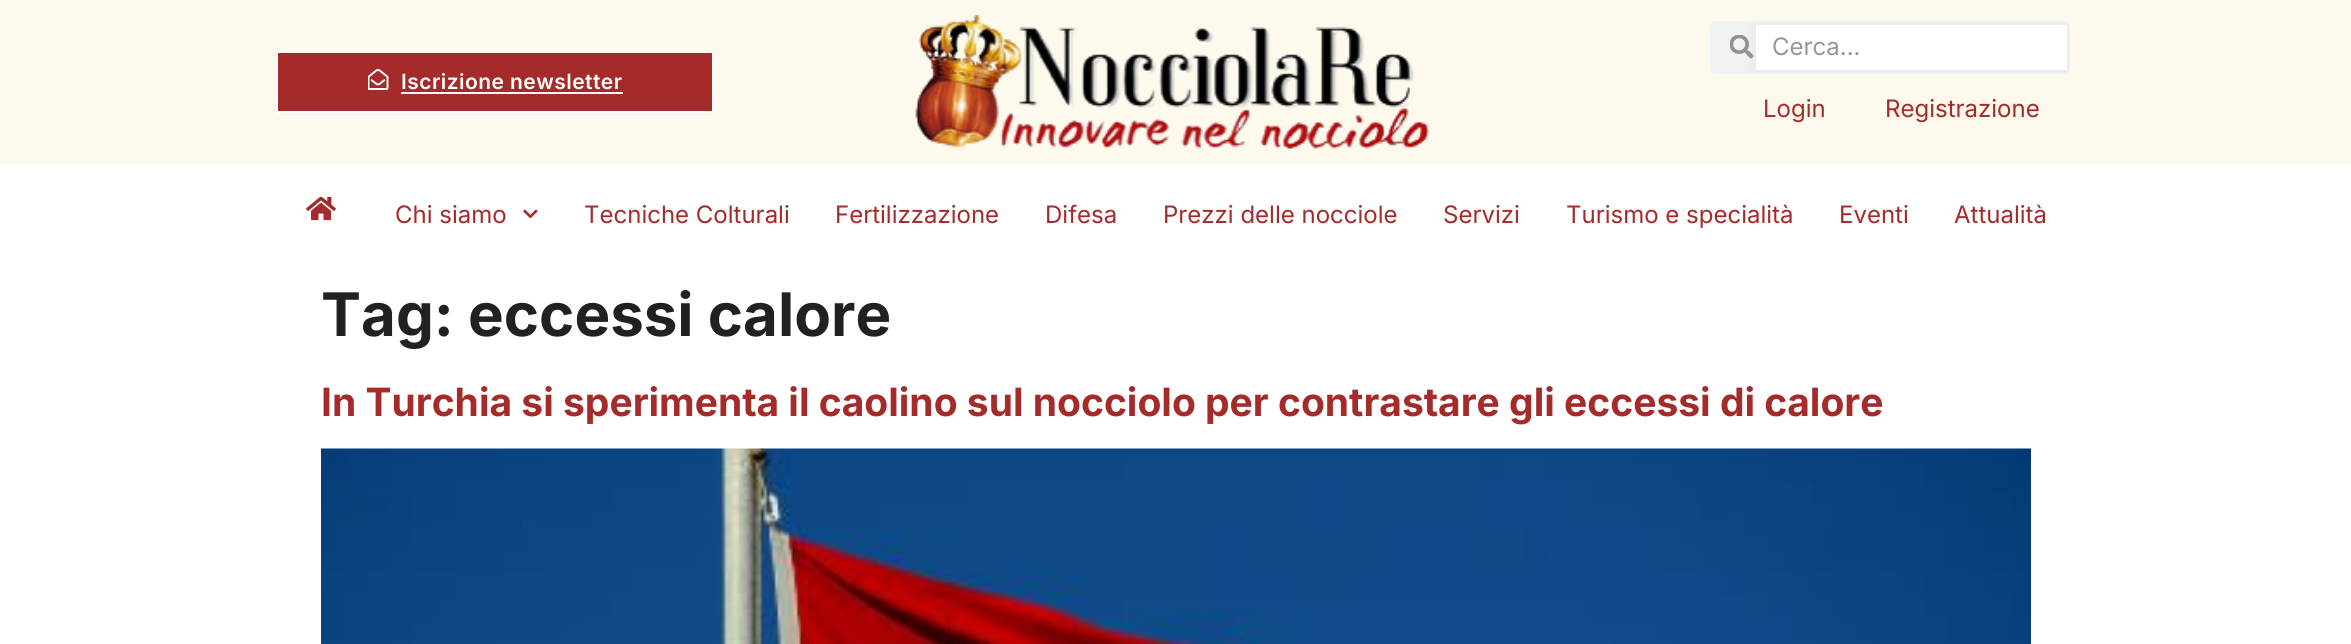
import math
import cairo


def write_spaced(ctx, x, y, s, letter, word):
	ctx.move_to(x, y)
	for ch in s:
		ctx.show_text(ch)
		ctx.rel_move_to(letter + word * (ch == ' '), 0)

def round_path(ctx, x, y, w, h, r):
	ctx.new_sub_path()
	for i, (u, v) in enumerate([(x + w - r, y + h - r), (x + r, y + h - r), (x + r, y + r), (x + w - r, y + r)]):
		ctx.arc(u, v, r, i * math.pi / 2, (i + 1) * math.pi / 2)
	ctx.close_path()

def blur_box(ctx, x, y, w, h, r, blur, alpha):
	ctx.push_group_with_content(cairo.CONTENT_ALPHA)
	ctx.set_operator(cairo.OPERATOR_SOURCE)
	for i in range(15, -16, -2):
		e = blur * i / 6
		if min(w, h) + 2 * e > 0:
			ctx.set_source_rgba(0, 0, 0, alpha * math.erfc((i - 1) / 8.5) / 2)
			round_path(ctx, x - e, y - e, w + 2 * e, h + 2 * e, max(0, min(r + e + blur * .6, min(w, h) / 2 + e)))
			ctx.fill()
	ctx.mask(ctx.pop_group())

def paste(ctx, path, x, y, w, h):
	ctx.save()
	ctx.set_source_surface(cairo.ImageSurface.create_from_png(path), x, y)
	ctx.rectangle(x, y, w, h)
	ctx.fill()
	ctx.restore()

def draw(ctx):
	ctx.set_source_rgb(1, 1, 1)
	ctx.paint()
	ctx.set_source_rgb(0.992, 0.973, 0.922)
	ctx.rectangle(0, 0, 2351, 164)
	ctx.fill()
	ctx.set_source_rgb(0.647, 0.165, 0.165)
	ctx.rectangle(277, 52, 436, 60)
	ctx.fill_preserve()
	ctx.set_source_rgb(1, 1, 1)
	ctx.stroke()
	paste(ctx, 'media/1.png', 368, 69, 21, 21)
	ctx.select_font_face('Inter SemiBold')
	ctx.set_font_size(21)
	write_spaced(ctx, 401, 89, 'Iscrizione newsletter', 0.45, 0)
	ctx.rectangle(401, 92, 222, 2)
	ctx.fill()
	paste(ctx, 'media/2.png', 915, 15, 514, 134)
	ctx.set_source_rgb(0.945, 0.949, 0.953)
	round_path(ctx, 1710, 21, 360, 53, 5)
	ctx.fill()
	ctx.save()
	round_path(ctx, 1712, 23, 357, 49, 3)
	ctx.clip()
	ctx.set_source_rgb(0, 0, 0)
	blur_box(ctx, 1754, 23, 315, 49, 0, 7.5, 0.06)
	ctx.restore()
	paste(ctx, 'media/3.png', 1730, 35, 24, 24)
	ctx.set_source_rgb(1, 1, 1)
	ctx.new_path()
	ctx.move_to(1754, 23)
	ctx.line_to(2066, 23)
	ctx.curve_to(2067.5, 23, 2069, 24.5, 2069, 26)
	ctx.line_to(2069, 69)
	ctx.curve_to(2069, 70.5, 2067.5, 72, 2066, 72)
	ctx.line_to(1754, 72)
	ctx.close_path()
	ctx.fill()
	ctx.set_source_rgb(0.929, 0.925, 0.925)
	ctx.set_fill_rule(cairo.FILL_RULE_EVEN_ODD)
	ctx.new_path()
	ctx.move_to(1754, 23)
	ctx.line_to(1754, 72)
	ctx.line_to(2066, 72)
	ctx.curve_to(2068, 72, 2069, 71, 2069, 69)
	ctx.line_to(2069, 26)
	ctx.curve_to(2069, 24, 2068, 23, 2066, 23)
	ctx.close_path()
	ctx.move_to(1756, 25)
	ctx.line_to(1756, 70)
	ctx.line_to(2067, 70)
	ctx.line_to(2067, 25)
	ctx.close_path()
	ctx.fill()
	ctx.select_font_face('Inter')
	ctx.set_font_size(24)
	ctx.set_source_rgb(0.592, 0.592, 0.592)
	ctx.move_to(1772, 55)
	ctx.show_text('Cerca...')
	ctx.set_source_rgb(0.647, 0.165, 0.165)
	ctx.move_to(1763, 117)
	ctx.show_text('Login')
	ctx.move_to(1885, 117)
	ctx.show_text('Registrazione')
	paste(ctx, 'media/4.png', 306, 196, 30, 25)
	ctx.move_to(395, 223)
	ctx.show_text('Chi siamo')
	paste(ctx, 'media/5.png', 523, 209, 15, 10)
	for x, y, s in [
		(584, 223, 'Tecniche Colturali'),
		(835, 223, 'Fertilizzazione'),
		(1045, 223, 'Difesa'),
		(1163, 223, 'Prezzi delle nocciole'),
		(1443, 223, 'Servizi'),
		(1566, 223, 'Turismo e specialità'),
		(1839, 223, 'Eventi'),
		(1954, 223, 'Attualità'),
	]:
		ctx.move_to(x, y)
		ctx.show_text(s)
	ctx.select_font_face('Inter', cairo.FONT_SLANT_NORMAL, cairo.FONT_WEIGHT_BOLD)
	ctx.set_font_size(60)
	ctx.set_source_rgb(0.129, 0.129, 0.129)
	ctx.move_to(321, 336)
	ctx.show_text('Tag: eccessi calore')
	ctx.set_font_size(39)
	ctx.set_source_rgb(0.647, 0.165, 0.165)
	ctx.move_to(321, 416)
	ctx.show_text('In Turchia si sperimenta il caolino sul nocciolo per contrastare gli eccessi di calore')
	paste(ctx, 'media/6.png', 321, 448, 1710, 196)


surface = cairo.ImageSurface(cairo.FORMAT_RGB24, 2351, 644)
ctx = cairo.Context(surface)
options = cairo.FontOptions()
options.set_hint_metrics(cairo.HINT_METRICS_OFF)
options.set_hint_style(cairo.HINT_STYLE_NONE)
ctx.set_font_options(options)
ctx.set_miter_limit(4)
draw(ctx)
surface.write_to_png('image.png')
